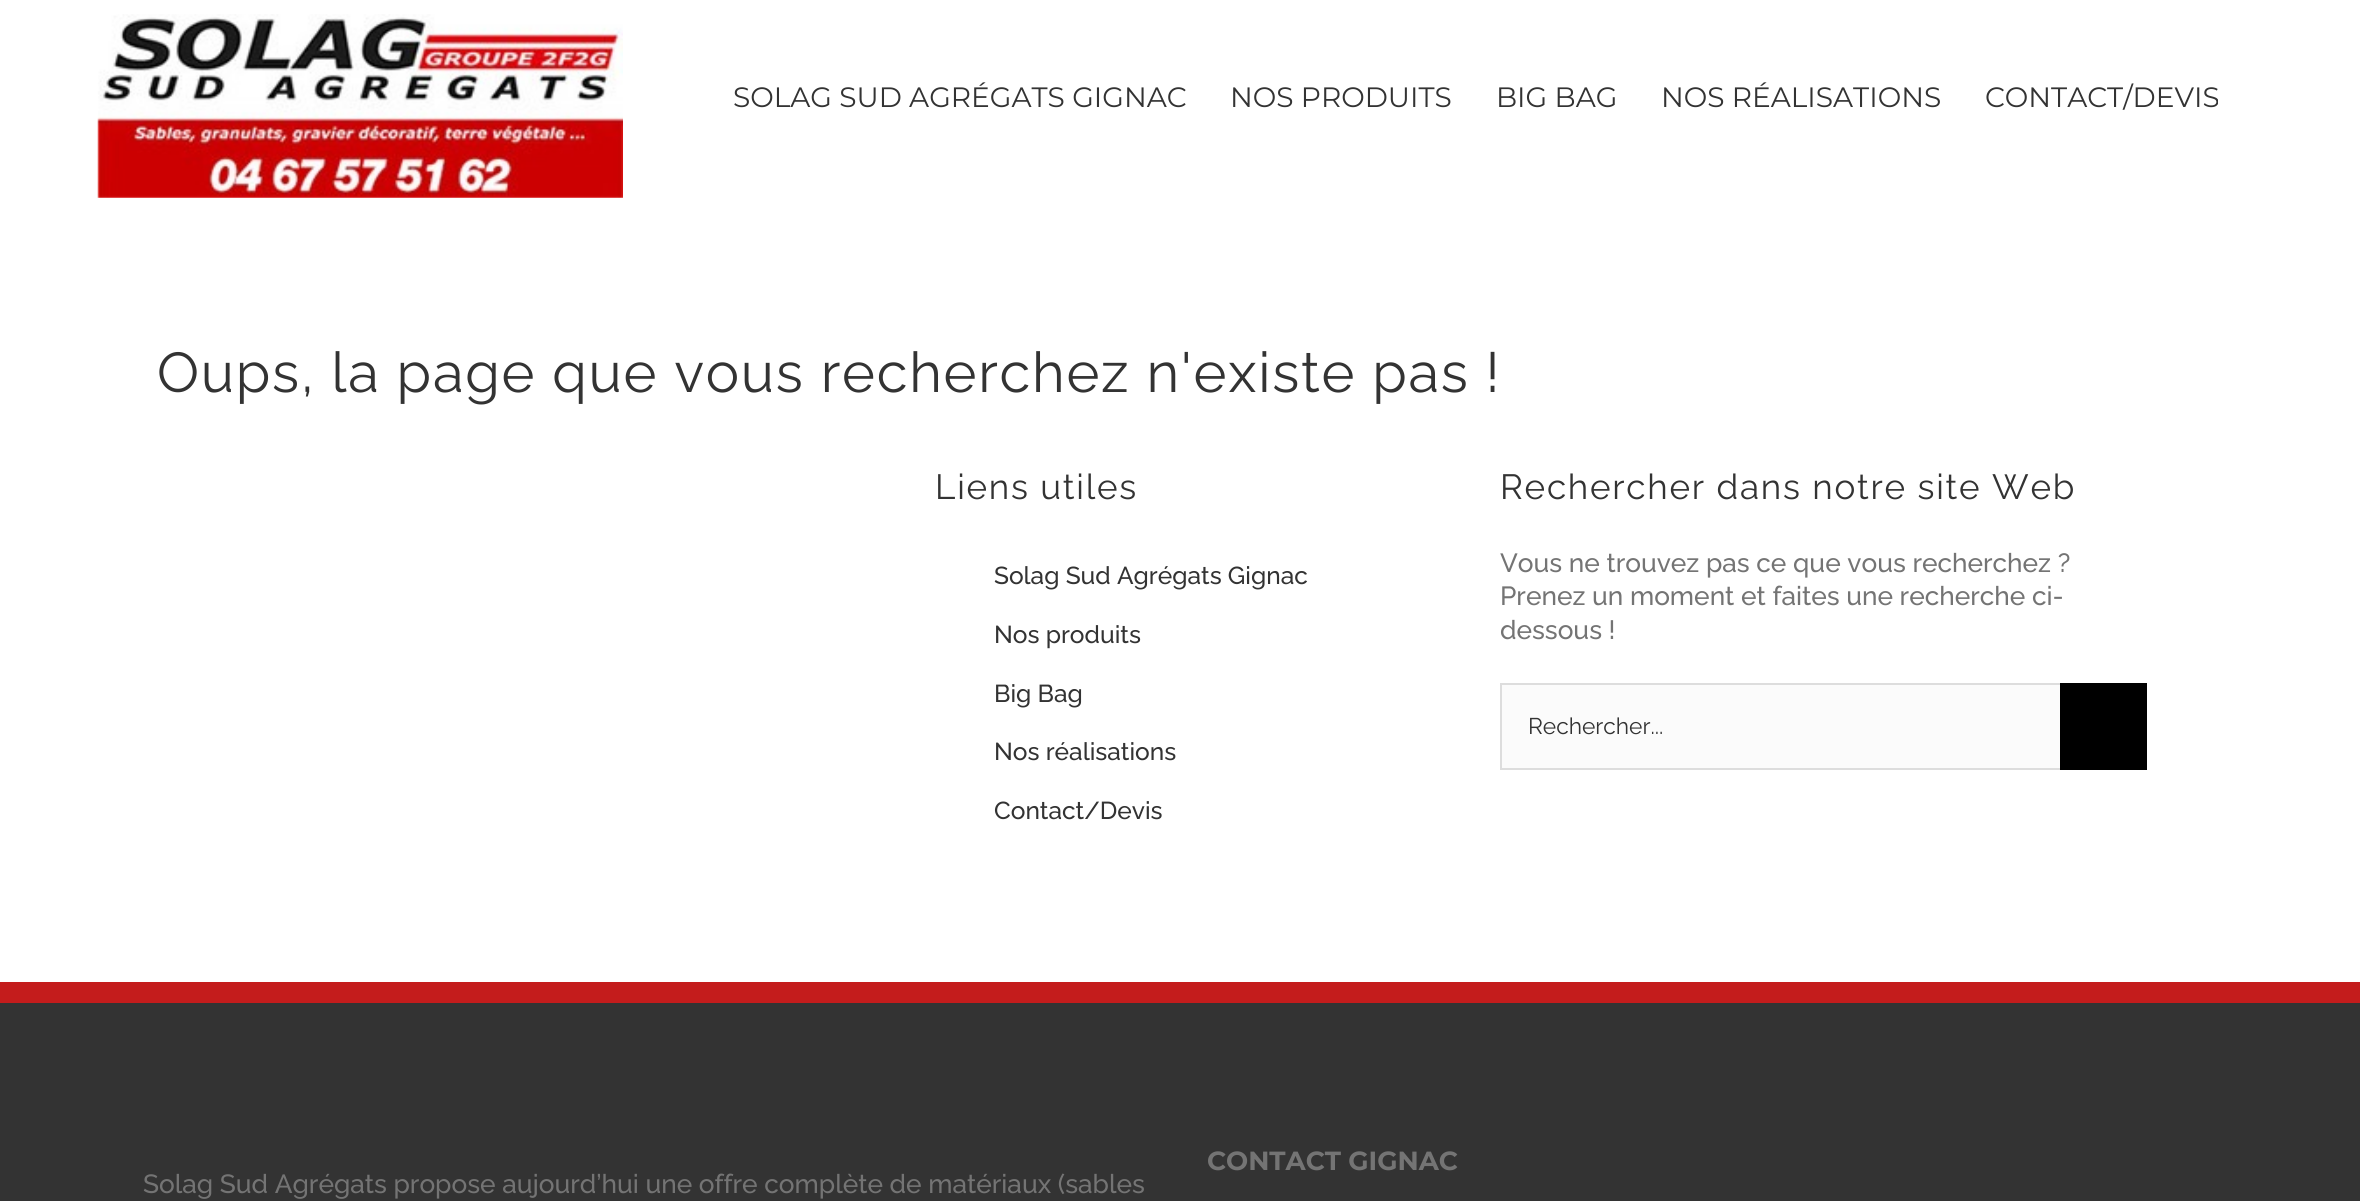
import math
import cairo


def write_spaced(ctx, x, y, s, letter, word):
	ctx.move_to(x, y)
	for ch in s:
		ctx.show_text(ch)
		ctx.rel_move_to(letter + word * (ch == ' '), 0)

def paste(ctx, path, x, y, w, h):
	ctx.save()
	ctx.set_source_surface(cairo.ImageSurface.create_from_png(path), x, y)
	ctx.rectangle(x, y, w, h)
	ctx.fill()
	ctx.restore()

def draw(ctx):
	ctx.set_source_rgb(1, 1, 1)
	ctx.paint()
	paste(ctx, 'media/1.png', 97, 14, 526, 184)
	ctx.select_font_face('Montserrat')
	ctx.set_font_size(28)
	ctx.set_source_rgb(0.2, 0.2, 0.2)
	for x, y, s in [
		(733, 107, 'SOLAG SUD AGRÉGATS GIGNAC'),
		(1230, 107, 'NOS PRODUITS'),
		(1496, 107, 'BIG BAG'),
		(1661, 107, 'NOS RÉALISATIONS'),
		(1985, 107, 'CONTACT/DEVIS'),
	]:
		ctx.move_to(x, y)
		ctx.show_text(s)
	ctx.select_font_face('Raleway')
	ctx.set_font_size(56)
	write_spaced(ctx, 157, 392, 'Oups, la page que vous recherchez n\'existe pas !', 1.75, 0)
	ctx.set_font_size(35)
	write_spaced(ctx, 935, 499, 'Liens utiles', 1.75, 0)
	ctx.select_font_face('Raleway Medium')
	ctx.set_font_size(24.5)
	for x, y, s in [
		(994, 584, 'Solag Sud Agrégats Gignac'),
		(994, 643, 'Nos produits'),
		(994, 702, 'Big Bag'),
		(994, 760, 'Nos réalisations'),
		(994, 819, 'Contact/Devis'),
	]:
		ctx.move_to(x, y)
		ctx.show_text(s)
	ctx.select_font_face('Raleway')
	ctx.set_font_size(35)
	write_spaced(ctx, 1500, 499, 'Rechercher dans notre site Web', 1.75, 0)
	ctx.select_font_face('Raleway Medium')
	ctx.set_font_size(26.25)
	ctx.set_source_rgb(0.455, 0.455, 0.455)
	for x, y, s in [
		(1500, 572, 'Vous ne trouvez pas ce que vous recherchez ?'),
		(1500, 605, 'Prenez un moment et faites une recherche ci-'),
		(1500, 639, 'dessous !'),
	]:
		ctx.move_to(x, y)
		ctx.show_text(s)
	ctx.set_source_rgb(0.984, 0.984, 0.984)
	ctx.rectangle(1502, 685, 558, 83)
	ctx.fill()
	ctx.set_source_rgb(0.867, 0.867, 0.867)
	ctx.rectangle(1500, 683, 560, 2)
	ctx.rectangle(1500, 768, 560, 2)
	ctx.rectangle(1500, 683, 2, 87)
	ctx.fill()
	ctx.select_font_face('Raleway')
	ctx.set_font_size(22.75)
	ctx.set_source_rgb(0.2, 0.2, 0.2)
	ctx.move_to(1528, 734)
	ctx.show_text('Rechercher...')
	ctx.set_source_rgb(0, 0, 0)
	ctx.rectangle(2060, 683, 87, 87)
	ctx.fill()
	ctx.set_source_rgb(0.2, 0.2, 0.2)
	ctx.rectangle(0, 1003, 2360, 198)
	ctx.fill()
	ctx.set_source_rgb(0.769, 0.11, 0.11)
	ctx.rectangle(0, 982, 2360, 21)
	ctx.fill()
	ctx.select_font_face('Montserrat', cairo.FONT_SLANT_NORMAL, cairo.FONT_WEIGHT_BOLD)
	ctx.set_font_size(26.25)
	ctx.set_source_rgb(0.455, 0.455, 0.455)
	ctx.move_to(1207, 1170)
	ctx.show_text('CONTACT GIGNAC')
	ctx.select_font_face('Raleway Medium')
	ctx.move_to(143, 1193)
	ctx.show_text('Solag Sud Agrégats propose aujourd’hui une offre complète de matériaux (sables')


surface = cairo.ImageSurface(cairo.FORMAT_RGB24, 2360, 1201)
ctx = cairo.Context(surface)
options = cairo.FontOptions()
options.set_hint_metrics(cairo.HINT_METRICS_OFF)
options.set_hint_style(cairo.HINT_STYLE_NONE)
ctx.set_font_options(options)
ctx.set_miter_limit(4)
draw(ctx)
surface.write_to_png('image.png')
